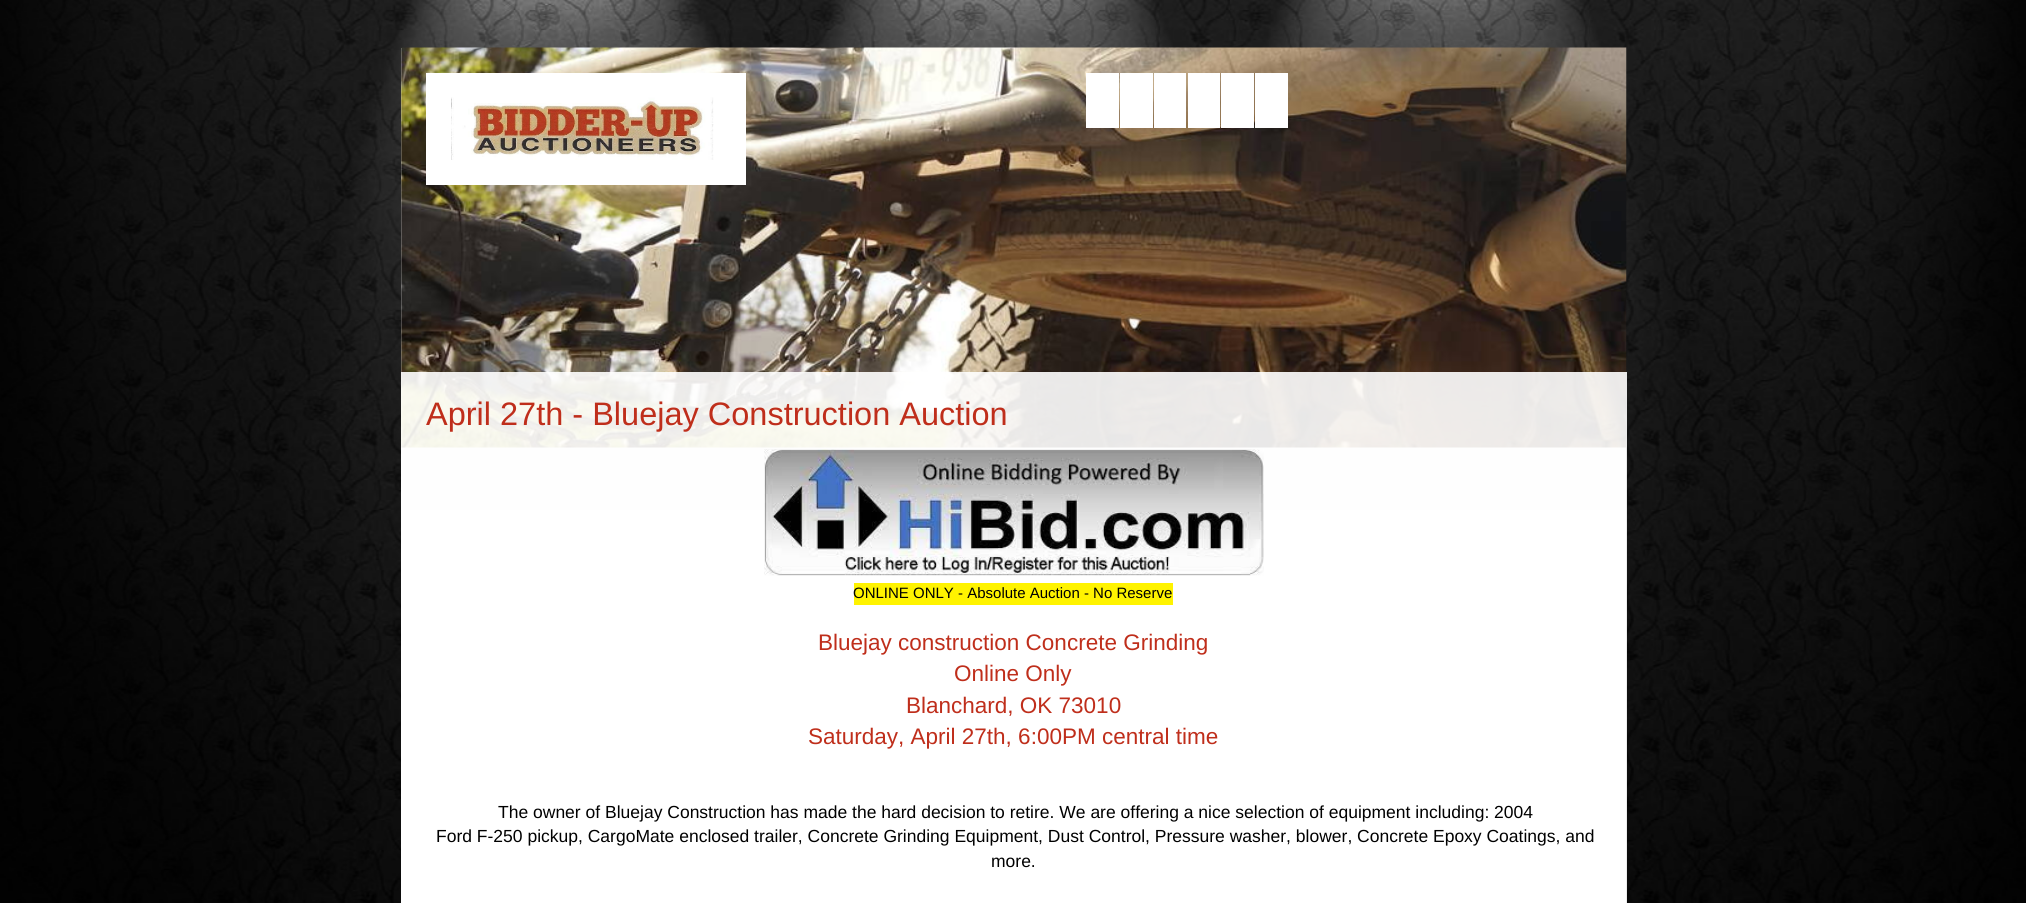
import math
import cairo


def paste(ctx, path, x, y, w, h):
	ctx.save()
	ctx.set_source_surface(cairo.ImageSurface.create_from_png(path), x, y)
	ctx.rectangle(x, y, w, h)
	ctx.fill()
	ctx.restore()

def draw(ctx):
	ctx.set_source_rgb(1, 1, 1)
	ctx.paint()
	paste(ctx, 'media/1.png', 0, 0, 2026, 903)
	ctx.set_source_rgb(0.933, 0.933, 0.933)
	ctx.rectangle(401, 48, 1225, 855)
	ctx.fill()
	paste(ctx, 'media/3.png', 401, 416, 1226, 487)
	paste(ctx, 'media/2.png', 401, 47, 1226, 401)
	ctx.set_source_rgb(1, 1, 1)
	ctx.rectangle(426, 73, 320, 112)
	ctx.fill()
	paste(ctx, 'media/4.png', 451, 97, 263, 63)
	ctx.rectangle(1086, 73, 33, 55)
	ctx.rectangle(1120, 73, 33, 55)
	ctx.rectangle(1154, 73, 32, 55)
	ctx.rectangle(1188, 73, 32, 55)
	ctx.rectangle(1221, 73, 33, 55)
	ctx.rectangle(1255, 73, 33, 55)
	ctx.fill()
	ctx.set_source_rgba(1, 1, 1, 0.9)
	ctx.rectangle(401, 372, 1226, 531)
	ctx.fill()
	ctx.select_font_face('Liberation Sans')
	ctx.set_font_size(32.5)
	ctx.set_source_rgb(0.749, 0.18, 0.106)
	ctx.move_to(426, 425)
	ctx.show_text('April 27th - Bluejay Construction Auction')
	paste(ctx, 'media/5.png', 764, 449, 500, 127)
	ctx.set_source_rgb(1, 0.953, 0)
	ctx.rectangle(854, 583, 319, 22)
	ctx.fill()
	ctx.set_font_size(15)
	ctx.set_source_rgb(0, 0, 0)
	ctx.move_to(853, 598)
	ctx.show_text('ONLINE ONLY - Absolute Auction - No Reserve')
	ctx.set_font_size(22.5)
	ctx.set_source_rgb(0.749, 0.18, 0.106)
	for x, y, s in [
		(818, 650, 'Bluejay construction Concrete Grinding'),
		(954, 681, 'Online Only'),
		(906, 713, 'Blanchard, OK 73010'),
		(808, 744, 'Saturday, April 27th, 6:00PM central time'),
	]:
		ctx.move_to(x, y)
		ctx.show_text(s)
	ctx.set_font_size(17.5)
	ctx.set_source_rgb(0, 0, 0)
	for x, y, s in [
		(498, 818, 'The owner of Bluejay Construction has made the hard decision to retire. We are offering a nice selection of equipment including: 2004'),
		(436, 842, 'Ford F-250 pickup, CargoMate enclosed trailer, Concrete Grinding Equipment, Dust Control, Pressure washer, blower, Concrete Epoxy Coatings, and'),
		(991, 867, 'more.'),
	]:
		ctx.move_to(x, y)
		ctx.show_text(s)


surface = cairo.ImageSurface(cairo.FORMAT_RGB24, 2026, 903)
ctx = cairo.Context(surface)
options = cairo.FontOptions()
options.set_hint_metrics(cairo.HINT_METRICS_OFF)
options.set_hint_style(cairo.HINT_STYLE_NONE)
ctx.set_font_options(options)
ctx.set_miter_limit(4)
draw(ctx)
surface.write_to_png('image.png')
